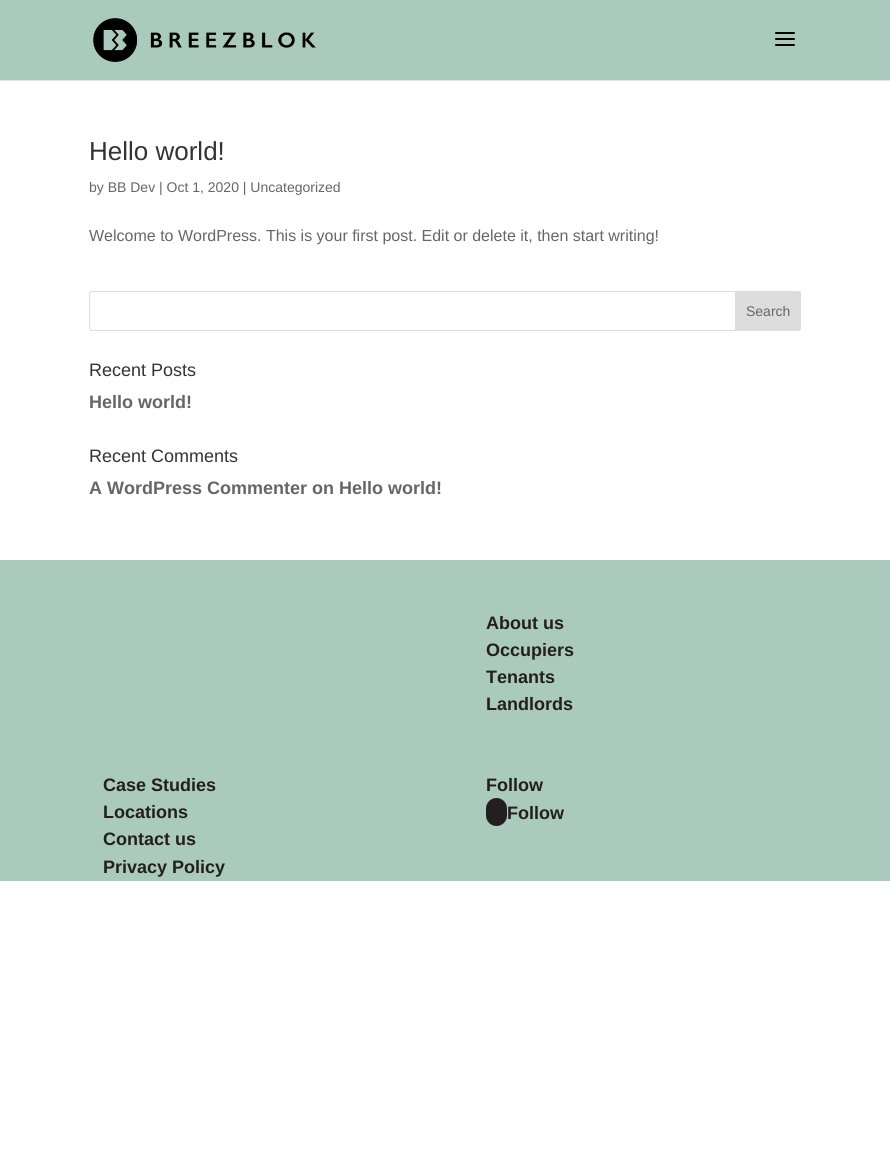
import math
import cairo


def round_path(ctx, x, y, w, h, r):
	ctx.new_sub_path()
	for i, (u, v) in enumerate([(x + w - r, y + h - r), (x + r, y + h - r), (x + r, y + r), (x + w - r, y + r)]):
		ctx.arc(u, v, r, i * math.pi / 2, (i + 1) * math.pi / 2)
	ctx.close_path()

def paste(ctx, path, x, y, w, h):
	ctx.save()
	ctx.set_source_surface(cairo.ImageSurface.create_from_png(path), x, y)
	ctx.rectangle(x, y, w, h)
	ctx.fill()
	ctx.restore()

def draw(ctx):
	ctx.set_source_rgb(1, 1, 1)
	ctx.paint()
	ctx.set_source_rgb(0.902, 0.902, 0.902)
	ctx.rectangle(0, 80, 890, 1)
	ctx.fill()
	ctx.set_source_rgb(0.671, 0.792, 0.745)
	ctx.rectangle(0, 0, 890, 80)
	ctx.fill()
	paste(ctx, 'media/1.png', 93, 18, 223, 44)
	paste(ctx, 'media/2.png', 775, 32, 20, 14)
	ctx.select_font_face('Liberation Sans')
	ctx.set_font_size(26)
	ctx.set_source_rgb(0.2, 0.2, 0.2)
	ctx.move_to(89, 160)
	ctx.show_text('Hello world!')
	ctx.set_font_size(14)
	ctx.set_source_rgb(0.4, 0.4, 0.4)
	ctx.move_to(89, 192)
	ctx.show_text('by BB Dev | Oct 1, 2020 | Uncategorized')
	ctx.set_font_size(16)
	ctx.move_to(89, 241)
	ctx.show_text('Welcome to WordPress. This is your first post. Edit or delete it, then start writing!')
	round_path(ctx, 89.5, 291.5, 711, 39, 2.5)
	ctx.set_source_rgb(0.867, 0.867, 0.867)
	ctx.set_line_width(1)
	ctx.stroke()
	ctx.new_path()
	ctx.move_to(735.5, 291.5)
	ctx.line_to(798, 291.5)
	ctx.curve_to(799.5, 291.5, 800.5, 292.5, 800.5, 294)
	ctx.line_to(800.5, 328)
	ctx.curve_to(800.5, 329.5, 799.5, 330.5, 798, 330.5)
	ctx.line_to(735.5, 330.5)
	ctx.close_path()
	ctx.fill_preserve()
	ctx.stroke()
	ctx.set_font_size(14)
	ctx.set_source_rgb(0.4, 0.4, 0.4)
	ctx.move_to(746, 316)
	ctx.show_text('Search')
	ctx.set_font_size(18)
	ctx.set_source_rgb(0.2, 0.2, 0.2)
	ctx.move_to(89, 376)
	ctx.show_text('Recent Posts')
	ctx.select_font_face('Liberation Sans', cairo.FONT_SLANT_NORMAL, cairo.FONT_WEIGHT_BOLD)
	ctx.set_source_rgb(0.4, 0.4, 0.4)
	ctx.move_to(89, 408)
	ctx.show_text('Hello world!')
	ctx.select_font_face('Liberation Sans')
	ctx.set_source_rgb(0.2, 0.2, 0.2)
	ctx.move_to(89, 462)
	ctx.show_text('Recent Comments')
	ctx.select_font_face('Liberation Sans', cairo.FONT_SLANT_NORMAL, cairo.FONT_WEIGHT_BOLD)
	ctx.set_source_rgb(0.4, 0.4, 0.4)
	ctx.move_to(89, 494)
	ctx.show_text('A WordPress Commenter on Hello world!')
	ctx.set_source_rgb(0.671, 0.792, 0.745)
	ctx.rectangle(0, 560, 890, 321)
	ctx.fill()
	ctx.set_source_rgb(0.137, 0.122, 0.125)
	for x, y, s in [
		(486, 629, 'About us'),
		(486, 656, 'Occupiers'),
		(486, 683, 'Tenants'),
		(486, 710, 'Landlords'),
		(103, 791, 'Case Studies'),
		(103, 818, 'Locations'),
		(103, 845, 'Contact us'),
		(103, 873, 'Privacy Policy'),
		(486, 791, 'Follow'),
		(507, 819, 'Follow'),
	]:
		ctx.move_to(x, y)
		ctx.show_text(s)
	round_path(ctx, 486, 798, 21, 28, 10.5)
	ctx.fill()


surface = cairo.ImageSurface(cairo.FORMAT_RGB24, 890, 1162)
ctx = cairo.Context(surface)
options = cairo.FontOptions()
options.set_hint_metrics(cairo.HINT_METRICS_OFF)
options.set_hint_style(cairo.HINT_STYLE_NONE)
ctx.set_font_options(options)
ctx.set_miter_limit(4)
draw(ctx)
surface.write_to_png('image.png')
